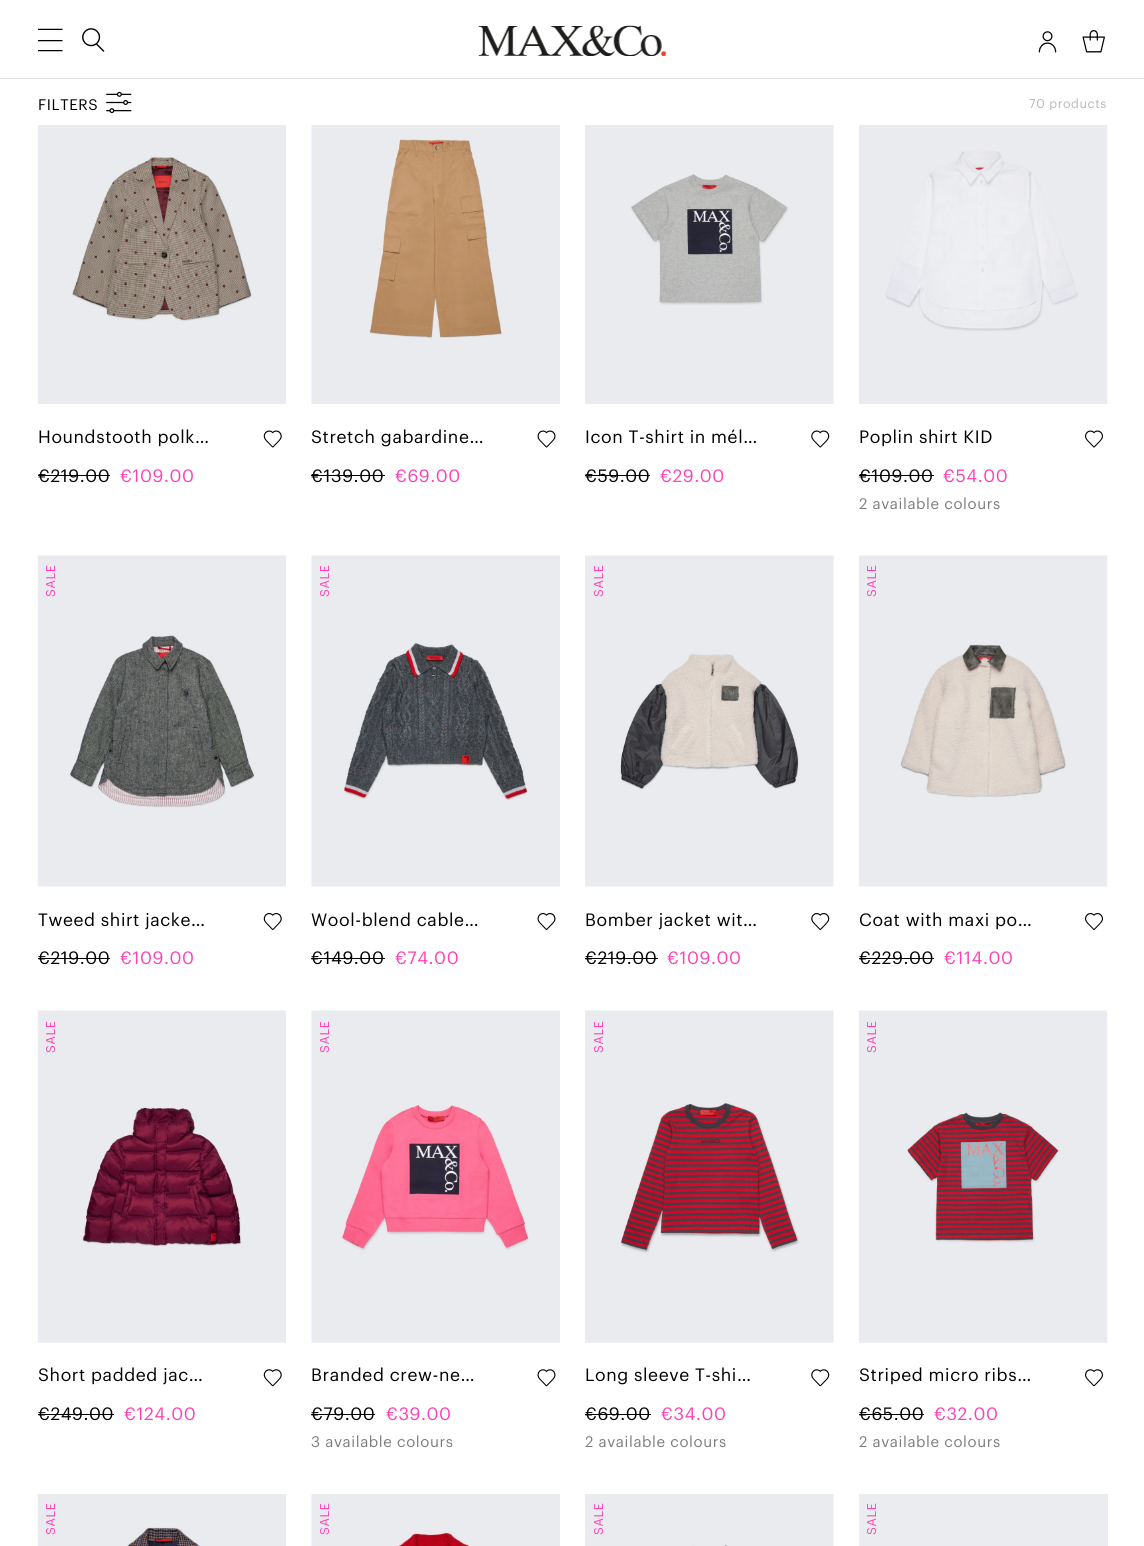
import math
import cairo


def write_spaced(ctx, x, y, s, letter, word):
	ctx.move_to(x, y)
	for ch in s:
		ctx.show_text(ch)
		ctx.rel_move_to(letter + word * (ch == ' '), 0)

def paste(ctx, path, x, y, w, h):
	ctx.save()
	ctx.set_source_surface(cairo.ImageSurface.create_from_png(path), x, y)
	ctx.rectangle(x, y, w, h)
	ctx.fill()
	ctx.restore()

def draw(ctx):
	ctx.set_source_rgb(1, 1, 1)
	ctx.paint()
	paste(ctx, 'media/1.png', 38, 28, 25, 24)
	paste(ctx, 'media/2.png', 82, 28, 23, 24)
	paste(ctx, 'media/3.png', 478, 25, 188, 31)
	paste(ctx, 'media/4.png', 1038, 31, 19, 22)
	paste(ctx, 'media/5.png', 1082, 30, 23, 23)
	ctx.set_source_rgb(0.898, 0.898, 0.898)
	ctx.rectangle(0, 78, 1144, 1)
	ctx.fill()
	ctx.select_font_face('Graphik')
	ctx.set_font_size(15)
	ctx.set_source_rgb(0, 0, 0)
	write_spaced(ctx, 38, 110, 'FILTERS', 0.6, 0)
	paste(ctx, 'media/6.png', 106, 91, 26, 23)
	ctx.set_font_size(12.5)
	ctx.set_source_rgb(0.718, 0.718, 0.718)
	write_spaced(ctx, 1029, 108, '70 products', 0.6, 0)
	paste(ctx, 'media/7.png', 37, 125, 249, 279)
	ctx.set_font_size(17.5)
	ctx.set_source_rgb(0, 0, 0)
	write_spaced(ctx, 38, 443, 'Houndstooth polk…', 0.6, 0)
	paste(ctx, 'media/8.png', 263, 430, 19, 18)
	write_spaced(ctx, 38, 482, '€219.00', 0.6, 0)
	ctx.rectangle(38, 475, 72, 1)
	ctx.fill()
	ctx.set_source_rgb(1, 0.251, 0.702)
	write_spaced(ctx, 120, 482, '€109.00', 0.6, 0)
	paste(ctx, 'media/9.png', 311, 125, 249, 279)
	ctx.set_source_rgb(0, 0, 0)
	write_spaced(ctx, 311, 443, 'Stretch gabardine…', 0.6, 0)
	paste(ctx, 'media/10.png', 537, 430, 19, 18)
	write_spaced(ctx, 311, 482, '€139.00', 0.6, 0)
	ctx.rectangle(311, 475, 74, 1)
	ctx.fill()
	ctx.set_source_rgb(1, 0.251, 0.702)
	write_spaced(ctx, 395, 482, '€69.00', 0.6, 0)
	paste(ctx, 'media/11.png', 585, 125, 249, 279)
	ctx.set_source_rgb(0, 0, 0)
	write_spaced(ctx, 585, 443, 'Icon T-shirt in mél…', 0.6, 0)
	paste(ctx, 'media/12.png', 811, 430, 19, 18)
	write_spaced(ctx, 585, 482, '€59.00', 0.6, 0)
	ctx.rectangle(585, 475, 65, 1)
	ctx.fill()
	ctx.set_source_rgb(1, 0.251, 0.702)
	write_spaced(ctx, 660, 482, '€29.00', 0.6, 0)
	paste(ctx, 'media/13.png', 859, 125, 249, 279)
	ctx.set_source_rgb(0, 0, 0)
	write_spaced(ctx, 859, 443, 'Poplin shirt KID', 0.6, 0)
	paste(ctx, 'media/14.png', 1085, 430, 18, 18)
	write_spaced(ctx, 859, 482, '€109.00', 0.6, 0)
	ctx.rectangle(859, 475, 75, 1)
	ctx.fill()
	ctx.set_source_rgb(1, 0.251, 0.702)
	write_spaced(ctx, 943, 482, '€54.00', 0.6, 0)
	ctx.set_font_size(15)
	ctx.set_source_rgb(0.49, 0.49, 0.494)
	write_spaced(ctx, 859, 509, '2 available colours', 0.6, 0)
	paste(ctx, 'media/15.png', 37, 555, 249, 332)
	ctx.set_font_size(12.5)
	ctx.set_source_rgb(1, 0.251, 0.702)
	ctx.save()
	ctx.translate(55, 597)
	ctx.rotate(-90 * math.pi / 180)
	write_spaced(ctx, 0, 0, 'SALE', 0.6, 0)
	ctx.restore()
	ctx.set_font_size(17.5)
	ctx.set_source_rgb(0, 0, 0)
	write_spaced(ctx, 38, 926, 'Tweed shirt jacke…', 0.6, 0)
	paste(ctx, 'media/16.png', 263, 913, 19, 17)
	write_spaced(ctx, 38, 964, '€219.00', 0.6, 0)
	ctx.rectangle(38, 958, 72, 1)
	ctx.fill()
	ctx.set_source_rgb(1, 0.251, 0.702)
	write_spaced(ctx, 120, 964, '€109.00', 0.6, 0)
	paste(ctx, 'media/17.png', 311, 555, 249, 332)
	ctx.set_font_size(12.5)
	ctx.save()
	ctx.translate(329, 597)
	ctx.rotate(-90 * math.pi / 180)
	write_spaced(ctx, 0, 0, 'SALE', 0.6, 0)
	ctx.restore()
	ctx.set_font_size(17.5)
	ctx.set_source_rgb(0, 0, 0)
	write_spaced(ctx, 311, 926, 'Wool-blend cable…', 0.6, 0)
	paste(ctx, 'media/18.png', 537, 913, 19, 17)
	write_spaced(ctx, 311, 964, '€149.00', 0.6, 0)
	ctx.rectangle(311, 958, 74, 1)
	ctx.fill()
	ctx.set_source_rgb(1, 0.251, 0.702)
	write_spaced(ctx, 395, 964, '€74.00', 0.6, 0)
	paste(ctx, 'media/19.png', 585, 555, 249, 332)
	ctx.set_font_size(12.5)
	ctx.save()
	ctx.translate(603, 597)
	ctx.rotate(-90 * math.pi / 180)
	write_spaced(ctx, 0, 0, 'SALE', 0.6, 0)
	ctx.restore()
	ctx.set_font_size(17.5)
	ctx.set_source_rgb(0, 0, 0)
	write_spaced(ctx, 585, 926, 'Bomber jacket wit…', 0.6, 0)
	paste(ctx, 'media/20.png', 811, 913, 19, 17)
	write_spaced(ctx, 585, 964, '€219.00', 0.6, 0)
	ctx.rectangle(585, 958, 73, 1)
	ctx.fill()
	ctx.set_source_rgb(1, 0.251, 0.702)
	write_spaced(ctx, 667, 964, '€109.00', 0.6, 0)
	paste(ctx, 'media/21.png', 859, 555, 249, 332)
	ctx.set_font_size(12.5)
	ctx.save()
	ctx.translate(876, 597)
	ctx.rotate(-90 * math.pi / 180)
	write_spaced(ctx, 0, 0, 'SALE', 0.6, 0)
	ctx.restore()
	ctx.set_font_size(17.5)
	ctx.set_source_rgb(0, 0, 0)
	write_spaced(ctx, 859, 926, 'Coat with maxi po…', 0.6, 0)
	paste(ctx, 'media/22.png', 1085, 913, 18, 17)
	write_spaced(ctx, 859, 964, '€229.00', 0.6, 0)
	ctx.rectangle(859, 958, 75, 1)
	ctx.fill()
	ctx.set_source_rgb(1, 0.251, 0.702)
	write_spaced(ctx, 944, 964, '€114.00', 0.6, 0)
	paste(ctx, 'media/23.png', 37, 1010, 249, 333)
	ctx.set_font_size(12.5)
	ctx.save()
	ctx.translate(55, 1053)
	ctx.rotate(-90 * math.pi / 180)
	write_spaced(ctx, 0, 0, 'SALE', 0.6, 0)
	ctx.restore()
	ctx.set_font_size(17.5)
	ctx.set_source_rgb(0, 0, 0)
	write_spaced(ctx, 38, 1381, 'Short padded jac…', 0.6, 0)
	paste(ctx, 'media/24.png', 263, 1369, 19, 18)
	write_spaced(ctx, 38, 1420, '€249.00', 0.6, 0)
	ctx.rectangle(38, 1414, 76, 1)
	ctx.fill()
	ctx.set_source_rgb(1, 0.251, 0.702)
	write_spaced(ctx, 124, 1420, '€124.00', 0.6, 0)
	paste(ctx, 'media/25.png', 311, 1010, 249, 333)
	ctx.set_font_size(12.5)
	ctx.save()
	ctx.translate(329, 1053)
	ctx.rotate(-90 * math.pi / 180)
	write_spaced(ctx, 0, 0, 'SALE', 0.6, 0)
	ctx.restore()
	ctx.set_font_size(17.5)
	ctx.set_source_rgb(0, 0, 0)
	write_spaced(ctx, 311, 1381, 'Branded crew-ne…', 0.6, 0)
	paste(ctx, 'media/26.png', 537, 1369, 19, 18)
	write_spaced(ctx, 311, 1420, '€79.00', 0.6, 0)
	ctx.rectangle(311, 1414, 64, 1)
	ctx.fill()
	ctx.set_source_rgb(1, 0.251, 0.702)
	write_spaced(ctx, 386, 1420, '€39.00', 0.6, 0)
	ctx.set_font_size(15)
	ctx.set_source_rgb(0.49, 0.49, 0.494)
	write_spaced(ctx, 311, 1447, '3 available colours', 0.6, 0)
	paste(ctx, 'media/27.png', 585, 1010, 249, 333)
	ctx.set_font_size(12.5)
	ctx.set_source_rgb(1, 0.251, 0.702)
	ctx.save()
	ctx.translate(603, 1053)
	ctx.rotate(-90 * math.pi / 180)
	write_spaced(ctx, 0, 0, 'SALE', 0.6, 0)
	ctx.restore()
	ctx.set_font_size(17.5)
	ctx.set_source_rgb(0, 0, 0)
	write_spaced(ctx, 585, 1381, 'Long sleeve T-shi…', 0.6, 0)
	paste(ctx, 'media/28.png', 811, 1369, 19, 18)
	write_spaced(ctx, 585, 1420, '€69.00', 0.6, 0)
	ctx.rectangle(585, 1414, 66, 1)
	ctx.fill()
	ctx.set_source_rgb(1, 0.251, 0.702)
	write_spaced(ctx, 661, 1420, '€34.00', 0.6, 0)
	ctx.set_font_size(15)
	ctx.set_source_rgb(0.49, 0.49, 0.494)
	write_spaced(ctx, 585, 1447, '2 available colours', 0.6, 0)
	paste(ctx, 'media/29.png', 859, 1010, 249, 333)
	ctx.set_font_size(12.5)
	ctx.set_source_rgb(1, 0.251, 0.702)
	ctx.save()
	ctx.translate(876, 1053)
	ctx.rotate(-90 * math.pi / 180)
	write_spaced(ctx, 0, 0, 'SALE', 0.6, 0)
	ctx.restore()
	ctx.set_font_size(17.5)
	ctx.set_source_rgb(0, 0, 0)
	write_spaced(ctx, 859, 1381, 'Striped micro ribs…', 0.6, 0)
	paste(ctx, 'media/30.png', 1085, 1369, 18, 18)
	write_spaced(ctx, 859, 1420, '€65.00', 0.6, 0)
	ctx.rectangle(859, 1414, 65, 1)
	ctx.fill()
	ctx.set_source_rgb(1, 0.251, 0.702)
	write_spaced(ctx, 934, 1420, '€32.00', 0.6, 0)
	ctx.set_font_size(15)
	ctx.set_source_rgb(0.49, 0.49, 0.494)
	write_spaced(ctx, 859, 1447, '2 available colours', 0.6, 0)
	paste(ctx, 'media/31.png', 37, 1494, 249, 52)
	ctx.set_font_size(12.5)
	ctx.set_source_rgb(1, 0.251, 0.702)
	ctx.save()
	ctx.translate(55, 1535)
	ctx.rotate(-90 * math.pi / 180)
	write_spaced(ctx, 0, 0, 'SALE', 0.6, 0)
	ctx.restore()
	paste(ctx, 'media/32.png', 311, 1494, 249, 52)
	ctx.save()
	ctx.translate(329, 1535)
	ctx.rotate(-90 * math.pi / 180)
	write_spaced(ctx, 0, 0, 'SALE', 0.6, 0)
	ctx.restore()
	paste(ctx, 'media/33.png', 585, 1494, 249, 52)
	ctx.save()
	ctx.translate(603, 1535)
	ctx.rotate(-90 * math.pi / 180)
	write_spaced(ctx, 0, 0, 'SALE', 0.6, 0)
	ctx.restore()
	ctx.set_source_rgb(0.918, 0.922, 0.937)
	ctx.rectangle(859, 1494, 249, 52)
	ctx.fill()
	ctx.set_source_rgb(1, 0.251, 0.702)
	ctx.save()
	ctx.translate(876, 1535)
	ctx.rotate(-90 * math.pi / 180)
	write_spaced(ctx, 0, 0, 'SALE', 0.6, 0)
	ctx.restore()


surface = cairo.ImageSurface(cairo.FORMAT_RGB24, 1144, 1546)
ctx = cairo.Context(surface)
options = cairo.FontOptions()
options.set_hint_metrics(cairo.HINT_METRICS_OFF)
options.set_hint_style(cairo.HINT_STYLE_NONE)
ctx.set_font_options(options)
ctx.set_miter_limit(4)
draw(ctx)
surface.write_to_png('image.png')
